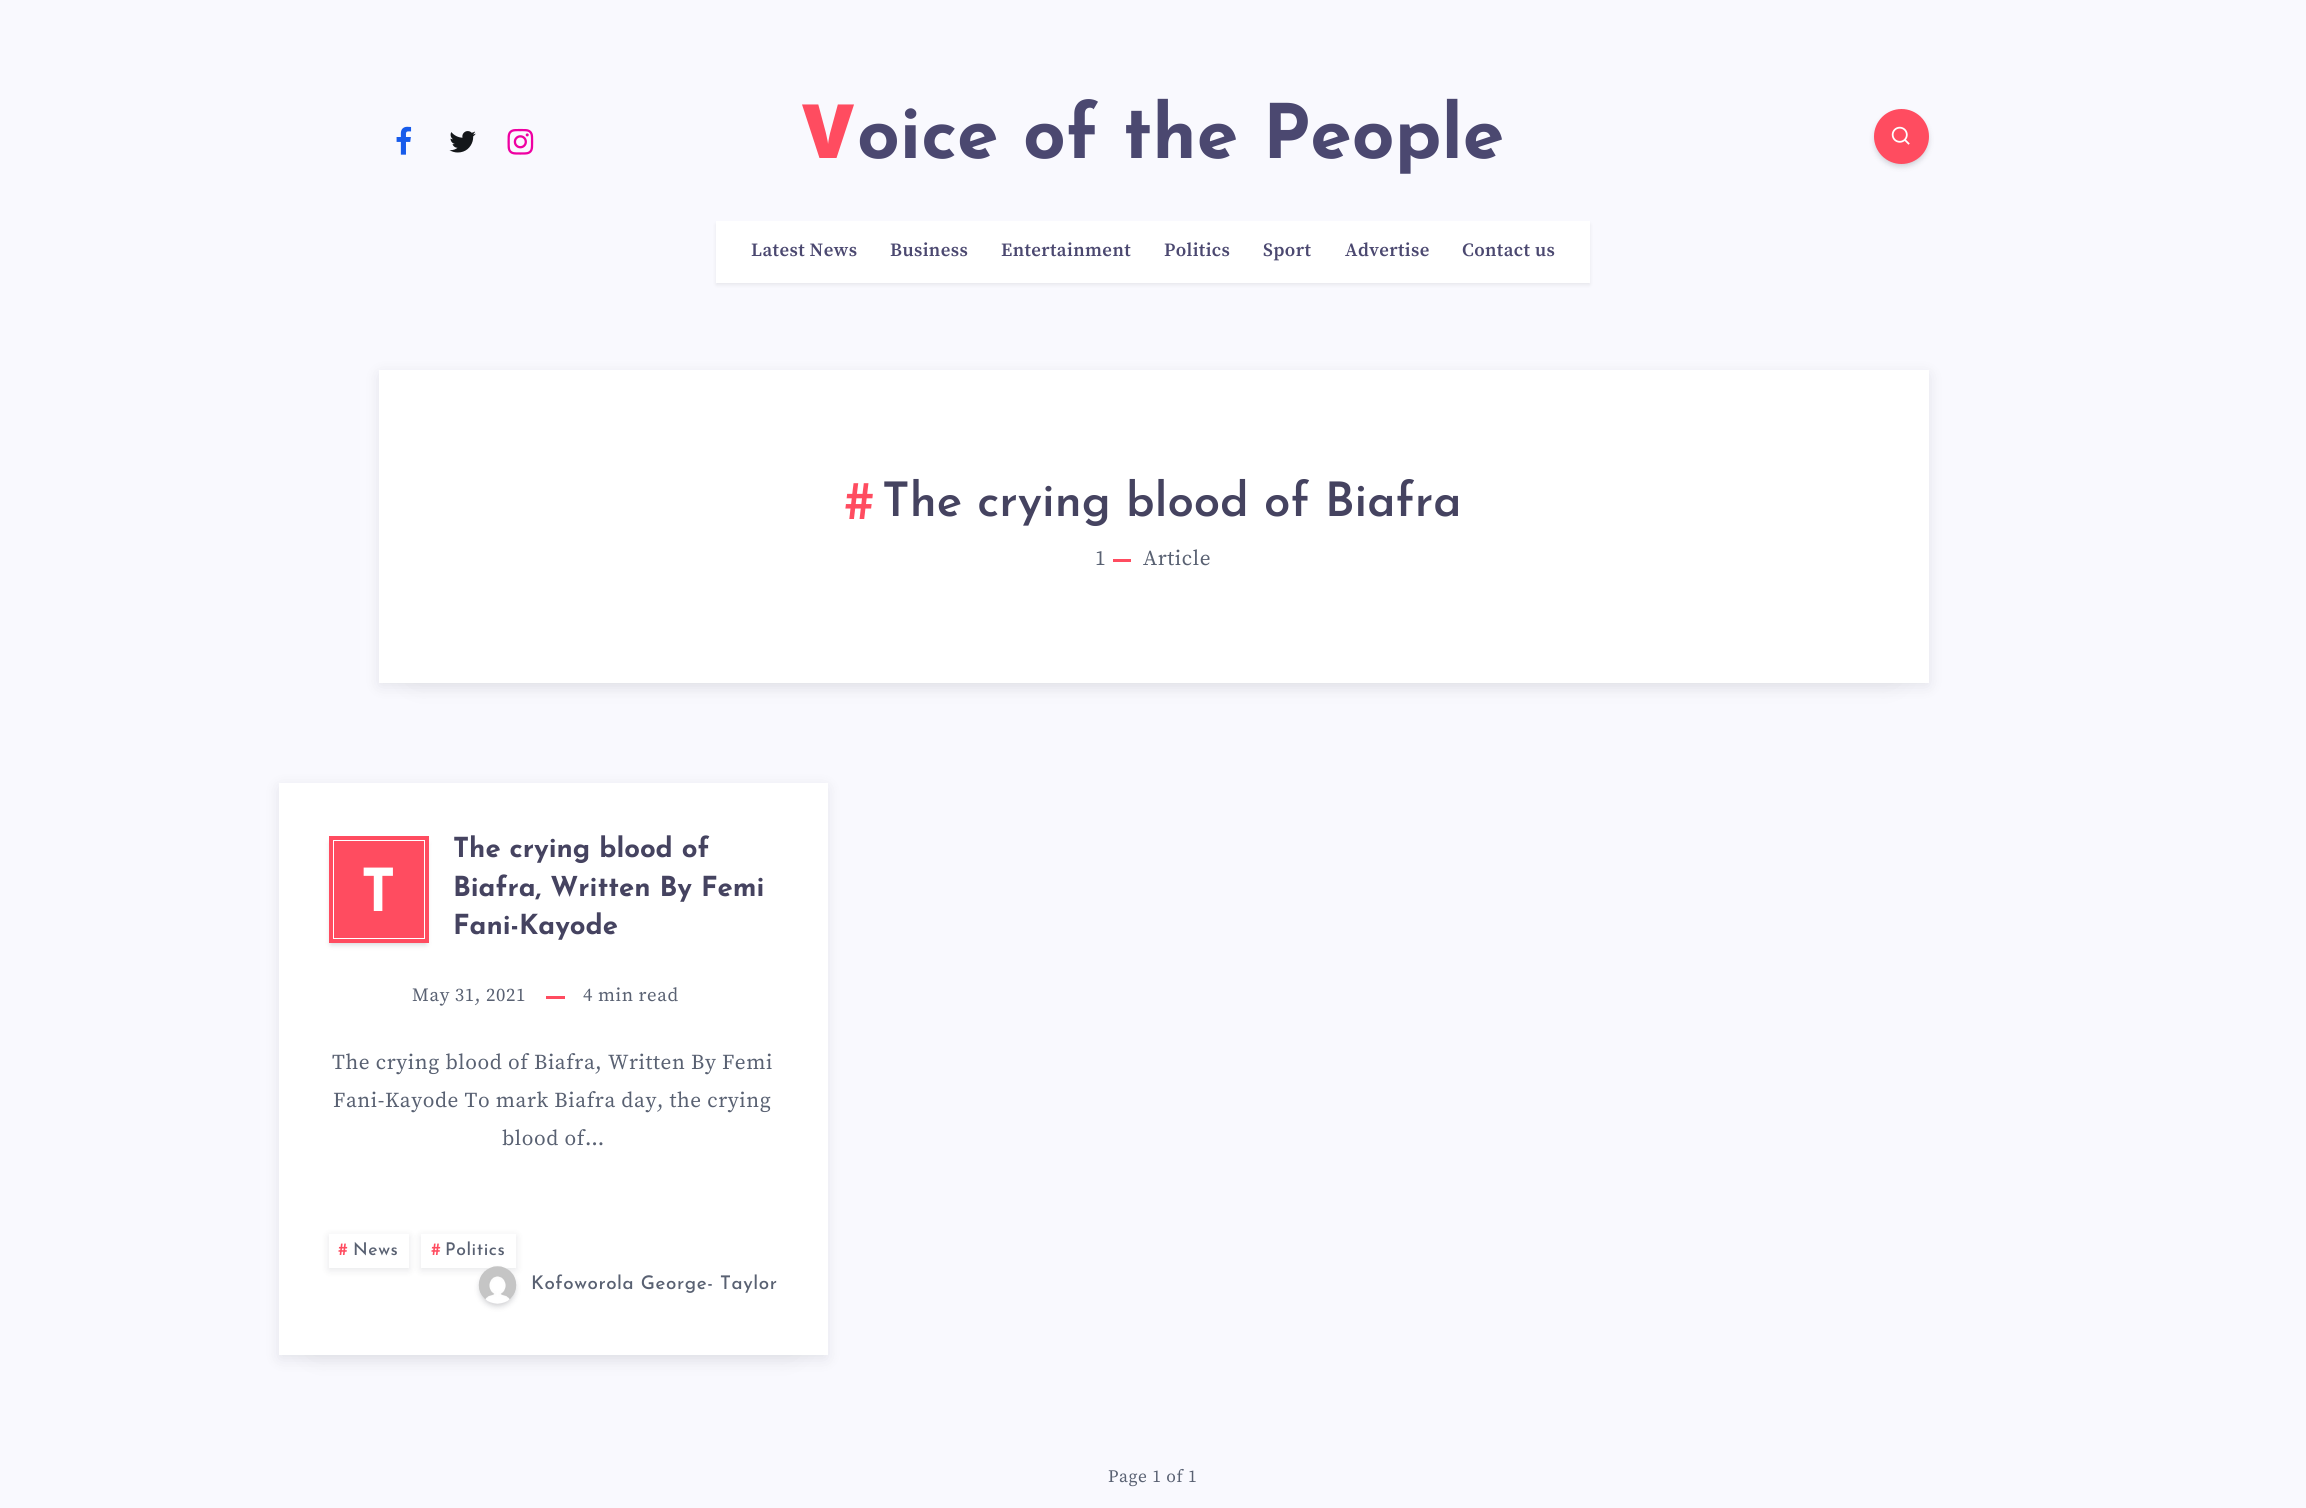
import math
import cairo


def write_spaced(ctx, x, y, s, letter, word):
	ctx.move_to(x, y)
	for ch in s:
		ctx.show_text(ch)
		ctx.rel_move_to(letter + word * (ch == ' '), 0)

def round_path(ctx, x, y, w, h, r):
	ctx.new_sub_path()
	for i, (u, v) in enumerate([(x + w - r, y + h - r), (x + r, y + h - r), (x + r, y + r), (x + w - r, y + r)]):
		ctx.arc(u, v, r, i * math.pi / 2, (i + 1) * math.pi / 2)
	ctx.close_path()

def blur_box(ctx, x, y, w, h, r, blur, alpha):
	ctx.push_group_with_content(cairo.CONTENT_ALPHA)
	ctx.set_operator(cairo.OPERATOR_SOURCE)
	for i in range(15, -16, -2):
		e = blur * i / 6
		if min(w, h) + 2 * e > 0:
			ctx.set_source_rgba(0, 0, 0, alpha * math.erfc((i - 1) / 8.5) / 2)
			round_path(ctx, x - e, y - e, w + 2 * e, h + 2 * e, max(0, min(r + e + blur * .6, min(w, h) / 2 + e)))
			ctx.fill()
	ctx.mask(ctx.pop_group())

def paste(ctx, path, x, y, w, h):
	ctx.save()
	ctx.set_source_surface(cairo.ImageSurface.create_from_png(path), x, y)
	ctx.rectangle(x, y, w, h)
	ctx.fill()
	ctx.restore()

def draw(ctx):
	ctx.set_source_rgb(0.976, 0.976, 0.996)
	ctx.paint()
	ctx.select_font_face('Noto Sans Black')
	ctx.set_font_size(75)
	ctx.set_source_rgb(1, 0.298, 0.376)
	ctx.move_to(802, 158)
	ctx.show_text('V')
	ctx.select_font_face('Josefin Sans', cairo.FONT_SLANT_NORMAL, cairo.FONT_WEIGHT_BOLD)
	ctx.set_source_rgb(0.294, 0.282, 0.439)
	ctx.move_to(857, 158)
	ctx.show_text('oice of the People')
	ctx.set_source_rgb(0.027, 0.039, 0.098)
	blur_box(ctx, 1875, 114, 53, 52, 26, 3, 0.2)
	ctx.set_source_rgb(1, 0.298, 0.376)
	ctx.arc(1901.5, 136.5, 27.5, 0, 2 * math.pi)
	ctx.fill()
	paste(ctx, 'media/1.png', 1891, 126, 19, 19)
	paste(ctx, 'media/2.png', 396, 126, 16, 29)
	paste(ctx, 'media/3.png', 449, 131, 27, 22)
	paste(ctx, 'media/4.png', 507, 128, 27, 27)
	ctx.set_source_rgb(0, 0, 0)
	blur_box(ctx, 716, 224, 874, 61, 0, 2, 0.07)
	ctx.set_source_rgb(1, 1, 1)
	ctx.rectangle(716, 221, 874, 62)
	ctx.fill()
	ctx.select_font_face('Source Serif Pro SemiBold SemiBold')
	ctx.set_font_size(18.75)
	ctx.set_source_rgb(0.294, 0.282, 0.439)
	for x, y, s in [
		(751, 256, 'Latest News'),
		(890, 256, 'Business'),
		(1001, 256, 'Entertainment'),
		(1164, 256, 'Politics'),
		(1263, 256, 'Sport'),
		(1345, 256, 'Advertise'),
		(1462, 256, 'Contact us'),
	]:
		write_spaced(ctx, x, y, s, 0.4, 0)
	ctx.set_source_rgb(0.027, 0.039, 0.098)
	blur_box(ctx, 416, 435, 1475, 238, 0, 17, 0.1)
	blur_box(ctx, 380, 375, 1548, 310, 0, 7.5, 0.1)
	ctx.set_source_rgb(1, 1, 1)
	ctx.rectangle(379, 370, 1550, 313)
	ctx.fill()
	ctx.select_font_face('Josefin Sans')
	ctx.set_font_size(55)
	ctx.set_source_rgb(1, 0.298, 0.376)
	ctx.move_to(844, 519)
	ctx.show_text('#')
	ctx.select_font_face('Josefin Sans SemiBold')
	ctx.set_font_size(47.5)
	ctx.set_source_rgb(0.271, 0.263, 0.376)
	ctx.move_to(882, 516)
	ctx.show_text('The crying blood of Biafra')
	ctx.select_font_face('Source Serif Pro')
	ctx.set_font_size(21.25)
	ctx.set_source_rgb(0.349, 0.38, 0.447)
	write_spaced(ctx, 1095, 565, '1', 0.6, 0)
	ctx.set_source_rgb(1, 0.298, 0.376)
	ctx.rectangle(1113, 559, 18, 3)
	ctx.fill()
	ctx.set_source_rgb(0.349, 0.38, 0.447)
	write_spaced(ctx, 1143, 565, 'Article', 0.6, 0)
	ctx.set_source_rgb(0.027, 0.039, 0.098)
	blur_box(ctx, 316, 848, 474, 497, 0, 17, 0.1)
	blur_box(ctx, 280, 788, 546, 570, 0, 7.5, 0.1)
	ctx.set_source_rgb(1, 1, 1)
	ctx.rectangle(279, 783, 549, 572)
	ctx.fill()
	ctx.set_source_rgb(0.027, 0.039, 0.098)
	blur_box(ctx, 331, 843, 95, 101, 0, 3, 0.2)
	ctx.set_source_rgb(1, 0.298, 0.376)
	ctx.rectangle(329, 836, 100, 107)
	ctx.fill()
	ctx.rectangle(333.5, 840.5, 91, 98)
	ctx.set_source_rgb(1, 1, 1)
	ctx.set_line_width(1)
	ctx.stroke()
	ctx.select_font_face('Josefin Sans', cairo.FONT_SLANT_NORMAL, cairo.FONT_WEIGHT_BOLD)
	ctx.set_font_size(59)
	write_spaced(ctx, 361, 911, 'T', 0.6, 0)
	ctx.set_font_size(27.5)
	ctx.set_source_rgb(0.271, 0.263, 0.376)
	for x, y, s in [
		(453, 857, 'The crying blood of'),
		(453, 896, 'Biafra, Written By Femi'),
		(453, 934, 'Fani-Kayode'),
	]:
		ctx.move_to(x, y)
		ctx.show_text(s)
	ctx.select_font_face('Source Serif Pro')
	ctx.set_font_size(18.75)
	ctx.set_source_rgb(0.349, 0.38, 0.447)
	write_spaced(ctx, 412, 1001, 'May 31, 2021', 0.6, 0)
	ctx.set_source_rgb(1, 0.298, 0.376)
	ctx.rectangle(546, 996, 19, 3)
	ctx.fill()
	ctx.set_source_rgb(0.349, 0.38, 0.447)
	write_spaced(ctx, 583, 1001, '4 min read', 0.6, 0)
	ctx.set_font_size(21.25)
	for x, y, s in [
		(332, 1069, 'The crying blood of Biafra, Written By Femi'),
		(333, 1107, 'Fani-Kayode To mark Biafra day, the crying'),
		(502, 1145, 'blood of…'),
	]:
		write_spaced(ctx, x, y, s, 0.6, 0)
	ctx.set_source_rgb(0.027, 0.039, 0.098)
	blur_box(ctx, 329, 1236, 80, 34, 0, 4, 0.1)
	ctx.set_source_rgb(1, 1, 1)
	ctx.rectangle(329, 1234, 80, 34)
	ctx.fill()
	ctx.select_font_face('Josefin Sans Medium')
	ctx.set_font_size(17.5)
	ctx.set_source_rgb(1, 0.298, 0.376)
	write_spaced(ctx, 338, 1255, '#', 0.6, 0)
	ctx.set_source_rgb(0.349, 0.38, 0.447)
	write_spaced(ctx, 353, 1255, 'News', 0.6, 0)
	ctx.set_source_rgb(0.027, 0.039, 0.098)
	blur_box(ctx, 421, 1236, 95, 34, 0, 4, 0.1)
	ctx.set_source_rgb(1, 1, 1)
	ctx.rectangle(421, 1234, 95, 34)
	ctx.fill()
	ctx.set_source_rgb(1, 0.298, 0.376)
	write_spaced(ctx, 431, 1255, '#', 0.6, 0)
	ctx.set_source_rgb(0.349, 0.38, 0.447)
	write_spaced(ctx, 445, 1255, 'Politics', 0.6, 0)
	ctx.set_source_rgb(0.027, 0.039, 0.098)
	blur_box(ctx, 480, 1271, 35, 35, 17.5, 3, 0.2)
	paste(ctx, 'media/5.png', 478, 1266, 39, 38)
	ctx.set_font_size(18.75)
	ctx.set_source_rgb(0.349, 0.38, 0.447)
	write_spaced(ctx, 531, 1289, 'Kofoworola George- Taylor', 0.6, 0)
	ctx.select_font_face('Source Serif Pro')
	ctx.set_font_size(17.5)
	write_spaced(ctx, 1108, 1482, 'Page 1 of 1', 0.6, 0)


surface = cairo.ImageSurface(cairo.FORMAT_RGB24, 2306, 1508)
ctx = cairo.Context(surface)
options = cairo.FontOptions()
options.set_hint_metrics(cairo.HINT_METRICS_OFF)
options.set_hint_style(cairo.HINT_STYLE_NONE)
ctx.set_font_options(options)
ctx.set_miter_limit(4)
draw(ctx)
surface.write_to_png('image.png')
